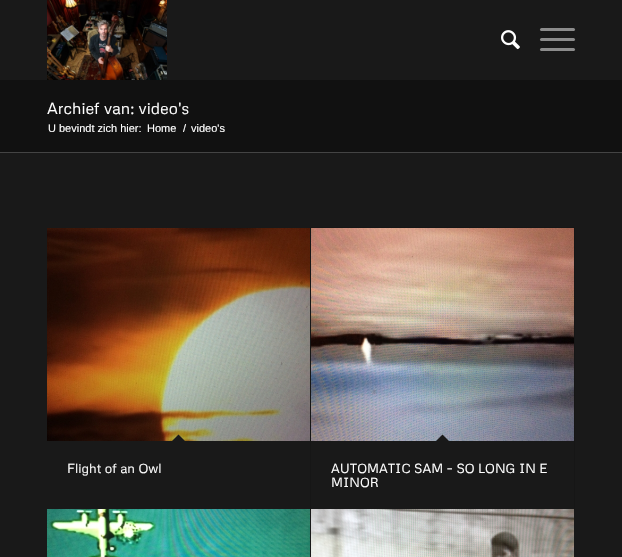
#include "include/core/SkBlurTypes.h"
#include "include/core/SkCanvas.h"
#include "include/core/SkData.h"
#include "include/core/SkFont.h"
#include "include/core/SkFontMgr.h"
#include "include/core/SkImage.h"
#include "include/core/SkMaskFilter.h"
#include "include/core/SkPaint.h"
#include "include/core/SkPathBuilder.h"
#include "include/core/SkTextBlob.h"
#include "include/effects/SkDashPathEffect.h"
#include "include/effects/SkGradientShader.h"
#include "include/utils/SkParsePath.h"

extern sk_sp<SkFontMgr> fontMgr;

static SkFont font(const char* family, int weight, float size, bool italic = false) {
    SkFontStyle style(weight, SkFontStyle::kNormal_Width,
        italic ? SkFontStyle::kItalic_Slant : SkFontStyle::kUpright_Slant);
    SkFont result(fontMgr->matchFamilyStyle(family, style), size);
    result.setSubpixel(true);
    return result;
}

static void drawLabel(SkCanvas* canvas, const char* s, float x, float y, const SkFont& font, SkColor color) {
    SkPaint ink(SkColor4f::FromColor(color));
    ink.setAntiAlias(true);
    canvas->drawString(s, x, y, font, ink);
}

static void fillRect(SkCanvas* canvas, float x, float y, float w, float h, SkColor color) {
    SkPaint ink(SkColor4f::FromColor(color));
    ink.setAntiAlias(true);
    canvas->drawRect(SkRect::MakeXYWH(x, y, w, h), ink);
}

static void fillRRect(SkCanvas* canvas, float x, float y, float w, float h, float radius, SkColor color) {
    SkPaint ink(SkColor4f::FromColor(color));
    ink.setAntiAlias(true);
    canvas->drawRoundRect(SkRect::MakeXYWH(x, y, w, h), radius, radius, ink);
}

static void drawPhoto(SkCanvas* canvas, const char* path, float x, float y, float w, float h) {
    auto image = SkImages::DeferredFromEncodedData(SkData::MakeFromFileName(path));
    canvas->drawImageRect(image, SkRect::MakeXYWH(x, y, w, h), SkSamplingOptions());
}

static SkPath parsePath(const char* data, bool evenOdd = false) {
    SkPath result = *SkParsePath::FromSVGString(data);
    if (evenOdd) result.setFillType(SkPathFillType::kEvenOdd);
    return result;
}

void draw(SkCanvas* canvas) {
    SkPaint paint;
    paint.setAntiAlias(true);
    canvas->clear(0xFF191919);
    drawPhoto(canvas, "assets/img1.png", 47, 0, 120, 80);
    drawPhoto(canvas, "assets/img2.png", 501, 30, 19, 20);
    fillRRect(canvas, 540, 38, 35, 3, 1.5f, 0xFF8C8C8C);
    fillRRect(canvas, 540, 28, 35, 3, 1.5f, 0xFF8C8C8C);
    fillRRect(canvas, 540, 48, 35, 3, 1.5f, 0xFF8C8C8C);
    fillRect(canvas, 0, 80, 622, 72, 0xFF111111);
    SkFont font1 = font("Metrophobic", 400, 16);
    drawLabel(canvas, "Archief van: video's", 47, 114, font1, 0xFFFFFFFF);
    SkFont font2 = font("Liberation Sans", 400, 11);
    drawLabel(canvas, "U bevindt zich hier:", 48, 132, font2, 0xFFFFFFFF);
    drawLabel(canvas, "Home", 147, 132, font2, 0xFFFFFFFF);
    drawLabel(canvas, "/", 183, 132, font2, 0xFFFFFFFF);
    drawLabel(canvas, "video's", 191, 132, font2, 0xFFFFFFFF);
    fillRect(canvas, 0, 152, 622, 1, 0xFF444444);
    drawPhoto(canvas, "assets/img3.png", 47, 228, 263, 213);
    paint.setColor(0xFF191919);
    canvas->drawPath(parsePath("M178.5 434.5L185.5 441.5L178.5 448.5L171.5 441.5Z"), paint);
    SkFont font3 = font("Metrophobic", 400, 13);
    drawLabel(canvas, "Flight of an Owl", 67, 473, font3, 0xFFFFFFFF);
    paint.setStroke(true);
    paint.setStrokeWidth(1);
    paint.setColor(0xFF161616);
    canvas->drawRect(SkRect::MakeXYWH(310.5f, 227.5f, 264, 282), paint);
    drawPhoto(canvas, "assets/img4.png", 311, 228, 263, 213);
    paint.setStroke(false);
    paint.setColor(0xFF191919);
    canvas->drawPath(parsePath("M442.5 434.5L449.5 441.5L442.5 448.5L435.5 441.5Z"), paint);
    drawLabel(canvas, "AUTOMATIC SAM – SO LONG IN E", 331, 473, font3, 0xFFFFFFFF);
    drawLabel(canvas, "MINOR", 331, 487, font3, 0xFFFFFFFF);
    drawPhoto(canvas, "assets/img5.png", 47, 509, 263, 48);
    drawPhoto(canvas, "assets/img6.png", 311, 509, 263, 48);
}
